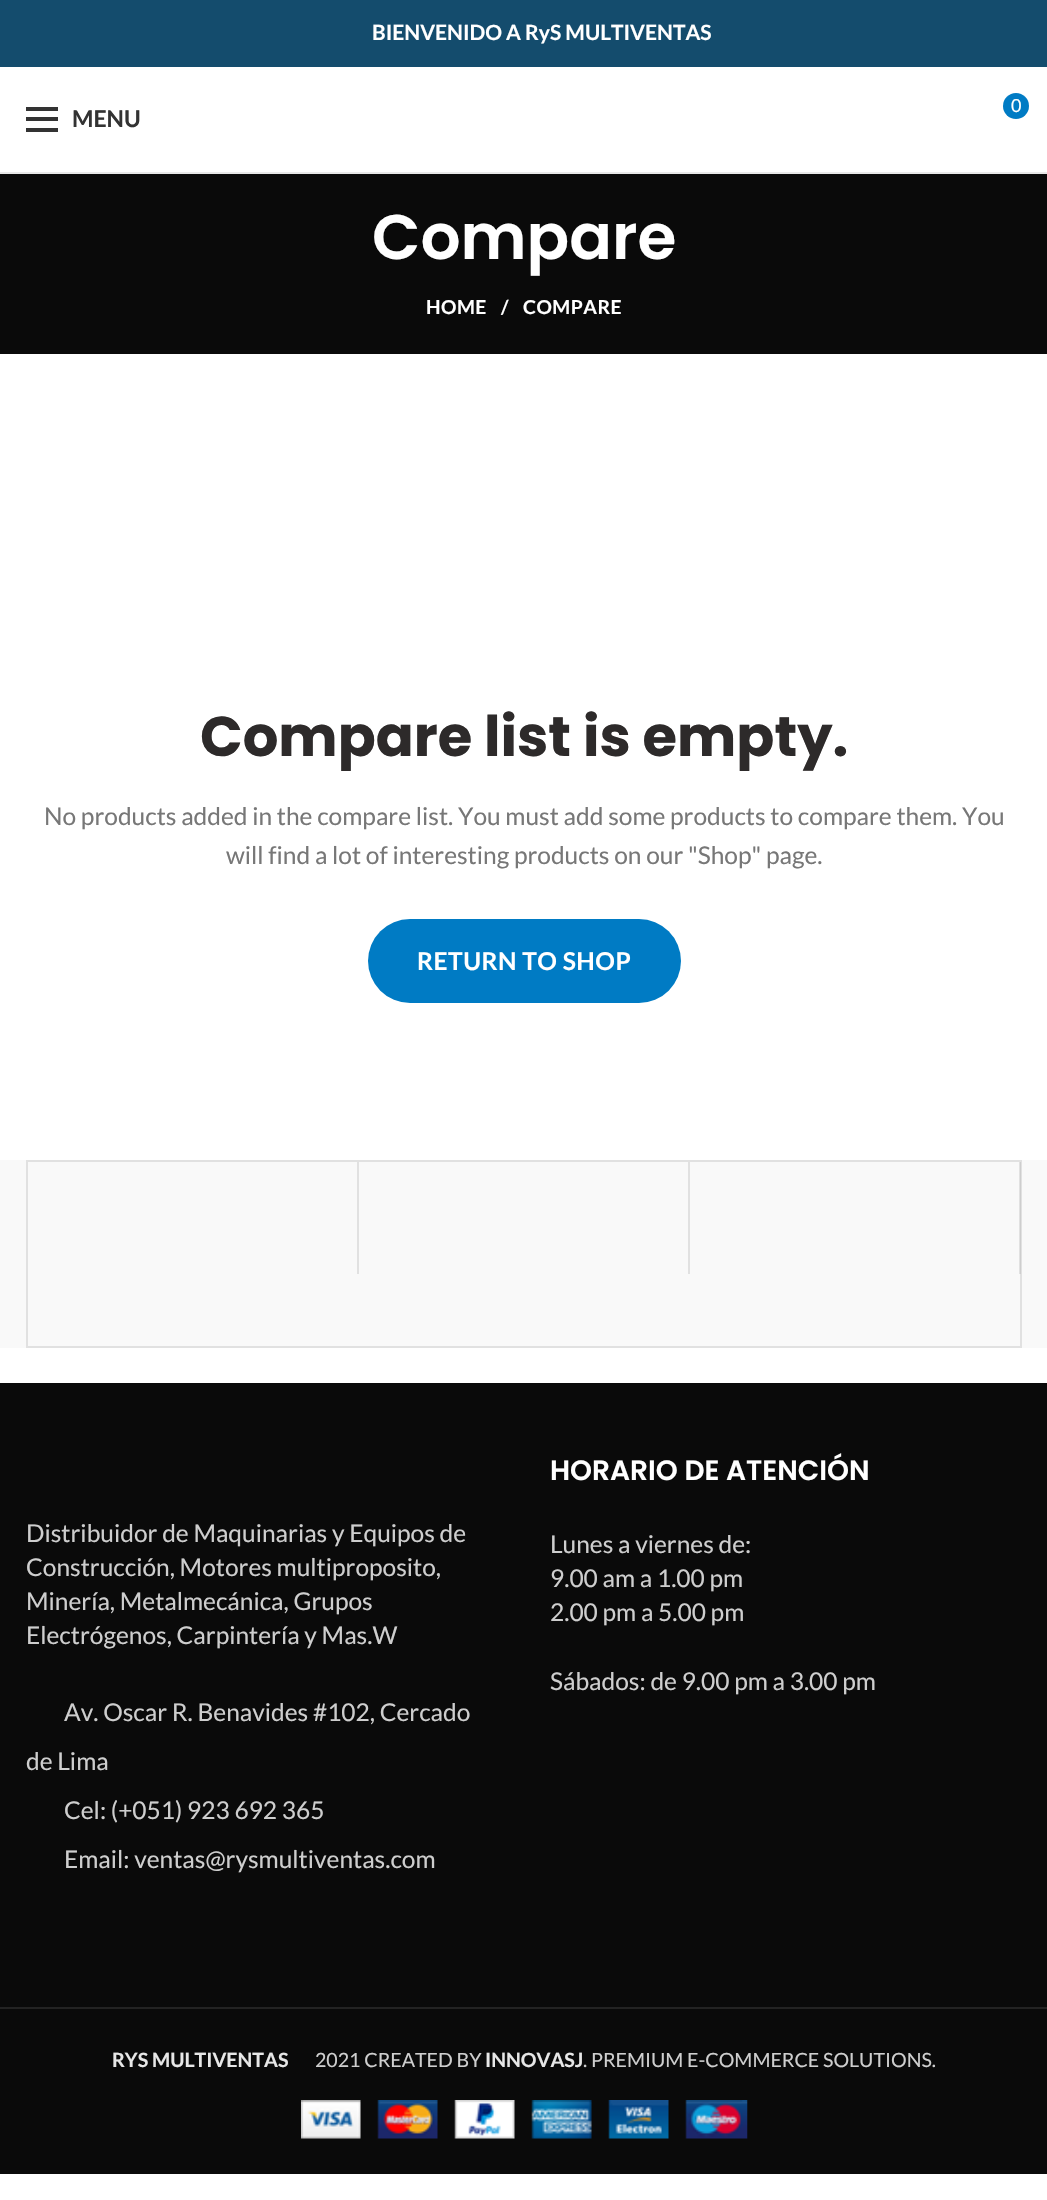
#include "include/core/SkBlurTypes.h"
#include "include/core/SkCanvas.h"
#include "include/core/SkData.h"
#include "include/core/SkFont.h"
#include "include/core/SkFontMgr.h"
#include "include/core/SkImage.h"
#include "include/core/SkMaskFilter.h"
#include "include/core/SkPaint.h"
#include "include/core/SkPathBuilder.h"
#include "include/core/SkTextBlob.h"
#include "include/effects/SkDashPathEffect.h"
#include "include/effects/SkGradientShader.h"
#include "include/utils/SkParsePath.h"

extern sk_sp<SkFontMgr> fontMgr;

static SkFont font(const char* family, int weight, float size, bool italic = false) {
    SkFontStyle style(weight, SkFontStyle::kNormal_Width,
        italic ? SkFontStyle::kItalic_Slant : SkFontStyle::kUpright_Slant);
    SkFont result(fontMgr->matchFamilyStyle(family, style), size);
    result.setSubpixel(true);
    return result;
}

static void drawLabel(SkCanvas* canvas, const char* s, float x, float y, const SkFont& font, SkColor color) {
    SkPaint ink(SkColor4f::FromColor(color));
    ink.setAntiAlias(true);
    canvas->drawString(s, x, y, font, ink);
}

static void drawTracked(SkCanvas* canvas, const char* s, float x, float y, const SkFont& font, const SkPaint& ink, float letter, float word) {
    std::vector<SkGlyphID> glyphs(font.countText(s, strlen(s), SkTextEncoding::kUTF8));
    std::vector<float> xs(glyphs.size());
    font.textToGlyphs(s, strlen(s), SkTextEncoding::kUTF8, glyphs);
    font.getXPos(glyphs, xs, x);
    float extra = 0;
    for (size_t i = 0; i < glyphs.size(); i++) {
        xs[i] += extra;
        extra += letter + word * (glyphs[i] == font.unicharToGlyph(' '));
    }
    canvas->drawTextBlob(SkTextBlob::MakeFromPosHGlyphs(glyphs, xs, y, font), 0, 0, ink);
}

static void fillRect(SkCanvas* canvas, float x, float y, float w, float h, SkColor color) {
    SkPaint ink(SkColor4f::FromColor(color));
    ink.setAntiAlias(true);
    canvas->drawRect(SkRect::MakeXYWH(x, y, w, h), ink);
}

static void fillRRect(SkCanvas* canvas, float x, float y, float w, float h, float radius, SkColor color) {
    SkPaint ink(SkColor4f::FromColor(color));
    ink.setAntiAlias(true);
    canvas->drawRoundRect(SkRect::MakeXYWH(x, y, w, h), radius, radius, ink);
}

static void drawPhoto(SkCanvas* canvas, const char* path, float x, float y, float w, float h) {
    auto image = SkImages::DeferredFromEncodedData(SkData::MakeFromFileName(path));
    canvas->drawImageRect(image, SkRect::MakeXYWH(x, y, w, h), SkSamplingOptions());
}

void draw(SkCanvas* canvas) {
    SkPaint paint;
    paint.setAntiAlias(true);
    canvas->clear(0xFFFFFFFF);
    fillRect(canvas, 0, 0, 1047, 67, 0xFF144C6D);
    SkFont font1 = font("Lato", 700, 21);
    drawLabel(canvas, "BIENVENIDO A RyS MULTIVENTAS", 372, 40, font1, 0xFFFFFFFF);
    fillRect(canvas, 0, 172, 1047, 2, 0xFFE8E8E8);
    paint.setColor(0xFF007BC4);
    canvas->drawCircle(1016, 106, 13, paint);
    SkFont font2 = font("Lato", 400, 18);
    drawLabel(canvas, "0", 1011, 112, font2, 0xFFFFFFFF);
    fillRect(canvas, 26, 117, 32, 4, 0xFF333333);
    fillRect(canvas, 26, 107, 32, 4, 0xFF333333);
    fillRect(canvas, 26, 128, 32, 4, 0xFF333333);
    SkFont font3 = font("Lato", 700, 23);
    drawLabel(canvas, "MENU", 72, 127, font3, 0xFF333333);
    fillRect(canvas, 0, 174, 1047, 180, 0xFF0A0A0A);
    SkFont font4 = font("Poppins", 600, 63);
    drawLabel(canvas, "Compare", 372, 259, font4, 0xFFFFFFFF);
    SkFont font5 = font("Lato", 700, 19.25f);
    paint.setColor(0xFFFFFFFF);
    drawTracked(canvas, "HOME", 426, 314, font5, paint, 0.5f, 0);
    drawTracked(canvas, "/", 501, 314, font5, paint, 0.5f, 0);
    drawTracked(canvas, "COMPARE", 523, 314, font5, paint, 0.5f, 0);
    SkFont font6 = font("Poppins", 700, 56);
    drawLabel(canvas, "Compare list is empty.", 200, 756, font6, 0xFF2D2A2A);
    SkFont font7 = font("Lato", 400, 24.5f);
    drawLabel(canvas, "No products added in the compare list. You must add some products to compare them. You", 44, 825, font7, 0xFF777777);
    drawLabel(canvas, "will find a lot of interesting products on our \"Shop\" page.", 226, 864, font7, 0xFF777777);
    fillRRect(canvas, 368, 919, 313, 84, 42, 0xFF007BC4);
    SkFont font8 = font("Lato", 700, 24.5f);
    drawTracked(canvas, "RETURN TO SHOP", 417, 970, font8, paint, 0.5f, 0);
    fillRect(canvas, 0, 1160, 1047, 188, 0xFFF9F9F9);
    paint.setStroke(true);
    paint.setStrokeWidth(2);
    paint.setColor(0xFFE1E1E1);
    canvas->drawRect(SkRect::MakeXYWH(27, 1161, 994, 186), paint);
    fillRect(canvas, 357, 1162, 2, 112, 0xFFE1E1E1);
    fillRect(canvas, 688, 1162, 2, 112, 0xFFE1E1E1);
    fillRect(canvas, 1019, 1162, 2, 112, 0x33818181);
    fillRect(canvas, 0, 1383, 1047, 791, 0xFF0A0A0A);
    drawLabel(canvas, "Distribuidor de Maquinarias y Equipos de", 26, 1542, font7, 0xFFCECECE);
    drawLabel(canvas, "Construcción, Motores multiproposito,", 26, 1576, font7, 0xFFCECECE);
    drawLabel(canvas, "Minería, Metalmecánica, Grupos", 26, 1610, font7, 0xFFCECECE);
    drawLabel(canvas, "Electrógenos, Carpintería y Mas.W", 26, 1644, font7, 0xFFCECECE);
    drawLabel(canvas, "Av. Oscar R. Benavides #102, Cercado", 64, 1721, font7, 0xFFCECECE);
    drawLabel(canvas, "de Lima", 26, 1770, font7, 0xFFCECECE);
    drawLabel(canvas, "Cel: (+051) 923 692 365", 64, 1819, font7, 0xFFCECECE);
    drawLabel(canvas, "Email: ventas@rysmultiventas.com", 64, 1868, font7, 0xFFCECECE);
    SkFont font9 = font("Poppins", 600, 28);
    drawLabel(canvas, "HORARIO DE ATENCIÓN", 550, 1480, font9, 0xFFFFFFFF);
    drawLabel(canvas, "Lunes a viernes de:", 550, 1553, font7, 0xFFCECECE);
    drawLabel(canvas, "9.00 am a 1.00 pm", 550, 1587, font7, 0xFFCECECE);
    drawLabel(canvas, "2.00 pm a 5.00 pm", 550, 1621, font7, 0xFFCECECE);
    drawLabel(canvas, "Sábados: de 9.00 pm a 3.00 pm", 550, 1690, font7, 0xFFCECECE);
    fillRect(canvas, 0, 2007, 1047, 2, 0xFF232323);
    SkFont font10 = font("Lato", 700, 19.6f);
    drawLabel(canvas, "RYS MULTIVENTAS", 112, 2067, font10, 0xFFE7E7E7);
    SkFont font11 = font("Lato", 400, 19.6f);
    drawLabel(canvas, "2021 CREATED BY", 315, 2067, font11, 0xFFCECECE);
    drawLabel(canvas, "INNOVASJ", 485, 2067, font10, 0xFFE7E7E7);
    drawLabel(canvas, ". PREMIUM E-COMMERCE SOLUTIONS.", 583, 2067, font11, 0xFFCECECE);
    drawPhoto(canvas, "assets/img1.png", 301, 2100, 447, 39);
}
